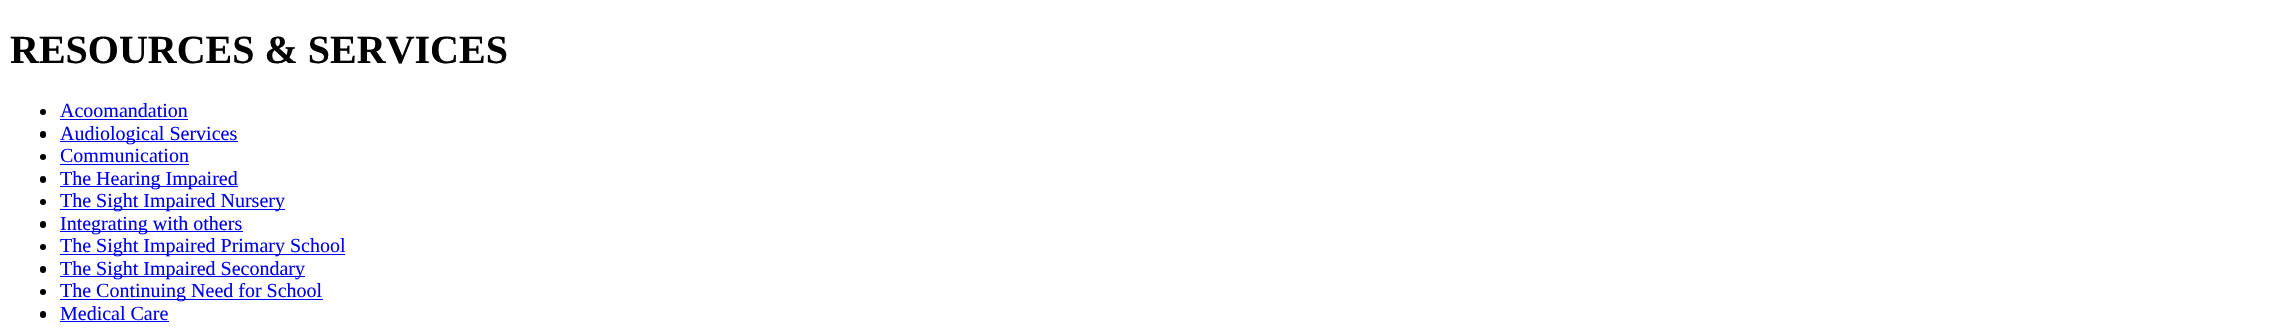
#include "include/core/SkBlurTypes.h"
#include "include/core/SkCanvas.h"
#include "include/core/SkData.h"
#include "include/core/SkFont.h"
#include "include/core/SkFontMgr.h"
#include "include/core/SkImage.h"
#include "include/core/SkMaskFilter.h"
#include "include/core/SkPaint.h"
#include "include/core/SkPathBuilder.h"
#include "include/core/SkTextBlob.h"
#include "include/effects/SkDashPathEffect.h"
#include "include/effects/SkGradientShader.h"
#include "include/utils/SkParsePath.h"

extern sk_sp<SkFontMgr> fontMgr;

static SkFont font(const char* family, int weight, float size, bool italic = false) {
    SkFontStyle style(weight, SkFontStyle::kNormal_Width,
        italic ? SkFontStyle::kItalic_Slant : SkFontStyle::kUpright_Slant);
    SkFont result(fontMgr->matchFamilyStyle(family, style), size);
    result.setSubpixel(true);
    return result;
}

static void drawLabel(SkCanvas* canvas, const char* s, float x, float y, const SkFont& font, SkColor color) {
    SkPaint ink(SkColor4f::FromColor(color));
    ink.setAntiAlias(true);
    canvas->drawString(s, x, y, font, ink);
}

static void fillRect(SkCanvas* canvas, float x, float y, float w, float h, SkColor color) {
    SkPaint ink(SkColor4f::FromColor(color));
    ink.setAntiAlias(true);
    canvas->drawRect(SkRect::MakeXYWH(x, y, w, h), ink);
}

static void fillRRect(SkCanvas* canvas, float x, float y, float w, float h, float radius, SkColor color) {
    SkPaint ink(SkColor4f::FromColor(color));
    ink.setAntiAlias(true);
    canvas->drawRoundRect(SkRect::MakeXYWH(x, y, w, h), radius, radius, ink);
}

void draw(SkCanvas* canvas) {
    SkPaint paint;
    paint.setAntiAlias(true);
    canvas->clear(0xFFFFFFFF);
    SkFont font1 = font("Liberation Serif", 700, 40);
    drawLabel(canvas, "RESOURCES & SERVICES", 10, 63, font1, 0xFF000000);
    paint.setColor(0xFF000000);
    canvas->drawCircle(43, 112, 3, paint);
    SkFont font2 = font("Liberation Serif", 400, 20);
    drawLabel(canvas, "Acoomandation", 60, 117, font2, 0xFF0000EE);
    fillRect(canvas, 60, 119, 128, 1, 0xFF0000EE);
    fillRRect(canvas, 40, 131, 6, 7, 3, 0xFF000000);
    fillRect(canvas, 60, 141, 178, 1, 0xFF0000EE);
    drawLabel(canvas, "Audiological Services", 60, 140, font2, 0xFF0000EE);
    canvas->drawCircle(43, 157, 3, paint);
    drawLabel(canvas, "Communication", 60, 162, font2, 0xFF0000EE);
    fillRect(canvas, 60, 164, 129, 1, 0xFF0000EE);
    fillRRect(canvas, 40, 176, 6, 7, 3, 0xFF000000);
    fillRect(canvas, 60, 186, 178, 1, 0xFF0000EE);
    drawLabel(canvas, "The Hearing Impaired", 60, 185, font2, 0xFF0000EE);
    canvas->drawCircle(43, 202, 3, paint);
    fillRect(canvas, 60, 209, 225, 1, 0xFF0000EE);
    drawLabel(canvas, "The Sight Impaired Nursery", 60, 207, font2, 0xFF0000EE);
    fillRRect(canvas, 40, 221, 6, 7, 3, 0xFF000000);
    fillRect(canvas, 60, 231, 183, 1, 0xFF0000EE);
    drawLabel(canvas, "Integrating with others", 60, 230, font2, 0xFF0000EE);
    canvas->drawCircle(43, 247, 3, paint);
    fillRect(canvas, 60, 254, 285, 1, 0xFF0000EE);
    drawLabel(canvas, "The Sight Impaired Primary School", 60, 252, font2, 0xFF0000EE);
    fillRRect(canvas, 40, 266, 6, 7, 3, 0xFF000000);
    fillRect(canvas, 60, 276, 245, 1, 0xFF0000EE);
    drawLabel(canvas, "The Sight Impaired Secondary", 60, 275, font2, 0xFF0000EE);
    canvas->drawCircle(43, 292, 3, paint);
    fillRect(canvas, 60, 299, 263, 1, 0xFF0000EE);
    drawLabel(canvas, "The Continuing Need for School", 60, 297, font2, 0xFF0000EE);
    fillRRect(canvas, 40, 311, 6, 7, 3, 0xFF000000);
    drawLabel(canvas, "Medical Care", 60, 320, font2, 0xFF0000EE);
    fillRect(canvas, 60, 321, 109, 1, 0xFF0000EE);
}
